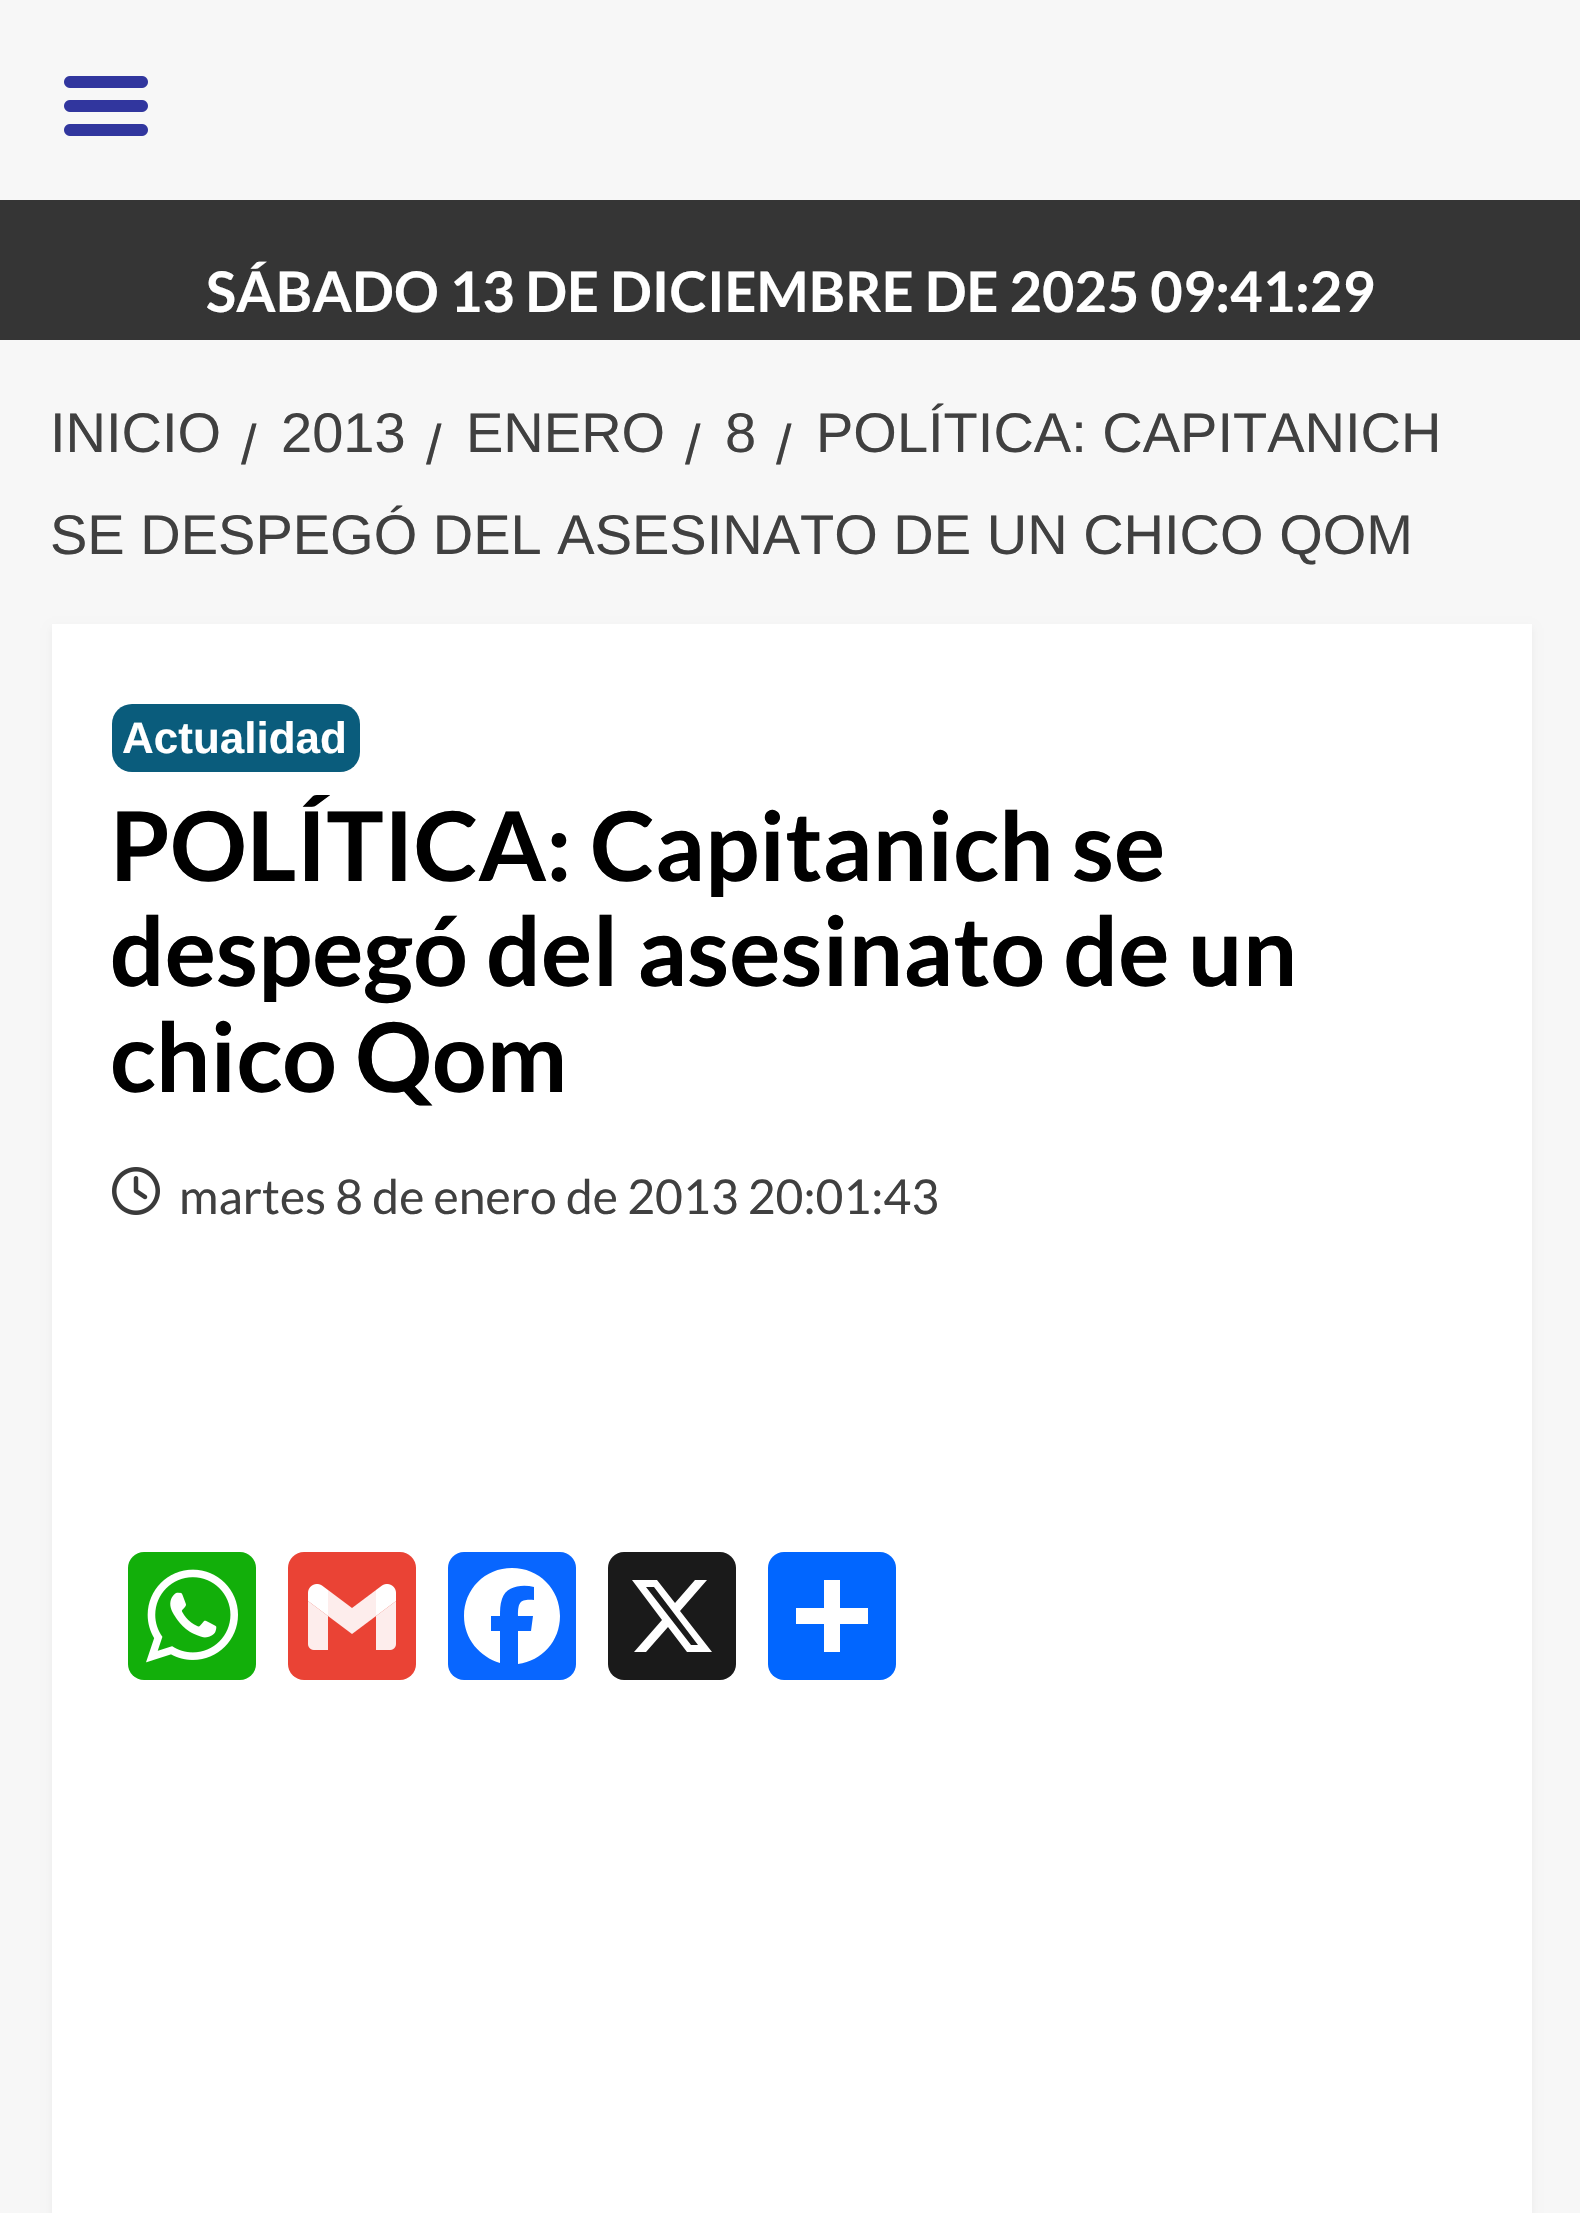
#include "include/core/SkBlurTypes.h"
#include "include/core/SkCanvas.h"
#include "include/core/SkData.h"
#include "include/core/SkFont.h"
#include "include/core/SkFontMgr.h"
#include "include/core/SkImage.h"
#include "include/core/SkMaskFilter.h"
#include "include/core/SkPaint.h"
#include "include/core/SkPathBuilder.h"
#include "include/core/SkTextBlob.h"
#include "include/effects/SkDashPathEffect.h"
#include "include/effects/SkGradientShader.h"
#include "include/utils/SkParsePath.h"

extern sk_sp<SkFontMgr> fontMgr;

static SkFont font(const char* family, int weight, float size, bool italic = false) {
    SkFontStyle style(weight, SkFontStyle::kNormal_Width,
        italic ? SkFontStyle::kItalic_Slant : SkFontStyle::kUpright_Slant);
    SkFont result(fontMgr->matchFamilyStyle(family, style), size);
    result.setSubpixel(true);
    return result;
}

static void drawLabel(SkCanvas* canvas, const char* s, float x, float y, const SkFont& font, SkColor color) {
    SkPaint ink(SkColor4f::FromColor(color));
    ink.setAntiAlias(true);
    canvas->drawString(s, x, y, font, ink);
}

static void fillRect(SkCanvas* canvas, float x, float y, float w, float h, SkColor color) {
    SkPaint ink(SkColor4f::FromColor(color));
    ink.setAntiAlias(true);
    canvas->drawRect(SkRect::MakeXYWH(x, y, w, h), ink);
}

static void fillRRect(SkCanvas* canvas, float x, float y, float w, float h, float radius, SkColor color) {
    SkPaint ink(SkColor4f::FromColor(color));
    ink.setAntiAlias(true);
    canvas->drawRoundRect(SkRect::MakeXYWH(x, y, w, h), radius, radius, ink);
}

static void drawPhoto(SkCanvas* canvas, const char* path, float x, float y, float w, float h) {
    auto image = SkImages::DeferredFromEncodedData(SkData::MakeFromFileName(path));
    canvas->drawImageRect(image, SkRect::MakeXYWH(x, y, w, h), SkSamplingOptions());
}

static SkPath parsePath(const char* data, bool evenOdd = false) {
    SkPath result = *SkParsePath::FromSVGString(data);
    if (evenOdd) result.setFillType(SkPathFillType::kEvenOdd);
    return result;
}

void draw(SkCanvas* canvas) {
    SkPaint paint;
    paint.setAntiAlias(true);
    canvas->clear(0xFFF7F7F7);
    drawPhoto(canvas, "assets/img1.png", 64, 76, 84, 60);
    fillRect(canvas, 0, 200, 1580, 140, 0xFF353535);
    SkFont font1 = font("Lato", 700, 56);
    drawLabel(canvas, "SÁBADO 13 DE DICIEMBRE DE 2025 09:41:29", 206, 312, font1, 0xFFFFFFFF);
    SkFont font2 = font("Liberation Sans", 400, 56);
    drawLabel(canvas, "/", 776, 464, font2, 0xFF404040);
    drawLabel(canvas, "POLÍTICA: CAPITANICH", 816, 452, font2, 0xFF404040);
    drawLabel(canvas, "SE DESPEGÓ DEL ASESINATO DE UN CHICO QOM", 50, 554, font2, 0xFF404040);
    drawLabel(canvas, "INICIO", 50, 452, font2, 0xFF404040);
    drawLabel(canvas, "/", 241, 464, font2, 0xFF404040);
    drawLabel(canvas, "2013", 281, 452, font2, 0xFF404040);
    drawLabel(canvas, "/", 426, 464, font2, 0xFF404040);
    drawLabel(canvas, "ENERO", 466, 452, font2, 0xFF404040);
    drawLabel(canvas, "/", 685, 464, font2, 0xFF404040);
    drawLabel(canvas, "8", 725, 452, font2, 0xFF404040);
    paint.setColor(0x0D000000);
    paint.setMaskFilter(SkMaskFilter::MakeBlur(kNormal_SkBlurStyle, 4));
    canvas->drawRect(SkRect::MakeXYWH(52, 628, 1480, 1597), paint);
    paint.setMaskFilter(nullptr);
    fillRect(canvas, 52, 624, 1480, 1589, 0xFFFFFFFF);
    fillRRect(canvas, 112, 704, 248, 68, 20, 0xFF0A5C7C);
    SkFont font3 = font("Liberation Sans", 700, 44);
    drawLabel(canvas, "Actualidad", 122, 753, font3, 0xFFFFFFFF);
    SkFont font4 = font("Lato", 700, 96);
    drawLabel(canvas, "POLÍTICA: Capitanich se", 110, 881, font4, 0xFF000000);
    drawLabel(canvas, "despegó del asesinato de un", 110, 986, font4, 0xFF000000);
    drawLabel(canvas, "chico Qom", 110, 1092, font4, 0xFF000000);
    drawPhoto(canvas, "assets/img2.png", 112, 1167, 48, 48);
    SkFont font5 = font("Lato", 400, 48);
    drawLabel(canvas, "martes 8 de enero de 2013 20:01:43", 179, 1214, font5, 0xFF404040);
    fillRRect(canvas, 128, 1552, 128, 128, 16, 0xFF12AF0A);
    drawPhoto(canvas, "assets/img3.png", 146, 1569, 92, 94);
    fillRRect(canvas, 288, 1552, 128, 128, 16, 0xFFEA4335);
    drawPhoto(canvas, "assets/img4.png", 308, 1584, 88, 66);
    fillRRect(canvas, 448, 1552, 128, 128, 16, 0xFF0866FF);
    paint.setColor(0xFFFFFFFF);
    canvas->drawPath(parsePath("M560 1616C560 1589 539 1568 512 1568C485 1568 464 1589 464 1616C464 1639 480 1657 500 1663V1631H491V1616H500C500 1610 500 1605 502 1599C506 1586 522 1584 534 1587V1600C520 1599 518 1602 518 1616H533L531 1631H518V1664C542 1661 560 1641 560 1616"), paint);
    fillRRect(canvas, 608, 1552, 128, 128, 16, 0xFF1A1A1A);
    canvas->drawPath(parsePath("M695 1580H707L680 1611L712 1652H687L668 1627L646 1652H634L662 1620L632 1580H657L675 1603ZM691 1645H698L654 1587H646Z"), paint);
    fillRRect(canvas, 768, 1552, 128, 128, 16, 0xFF0166FF);
    fillRect(canvas, 824, 1580, 16, 72, 0xFFFFFFFF);
    fillRect(canvas, 796, 1608, 72, 16, 0xFFFFFFFF);
}
